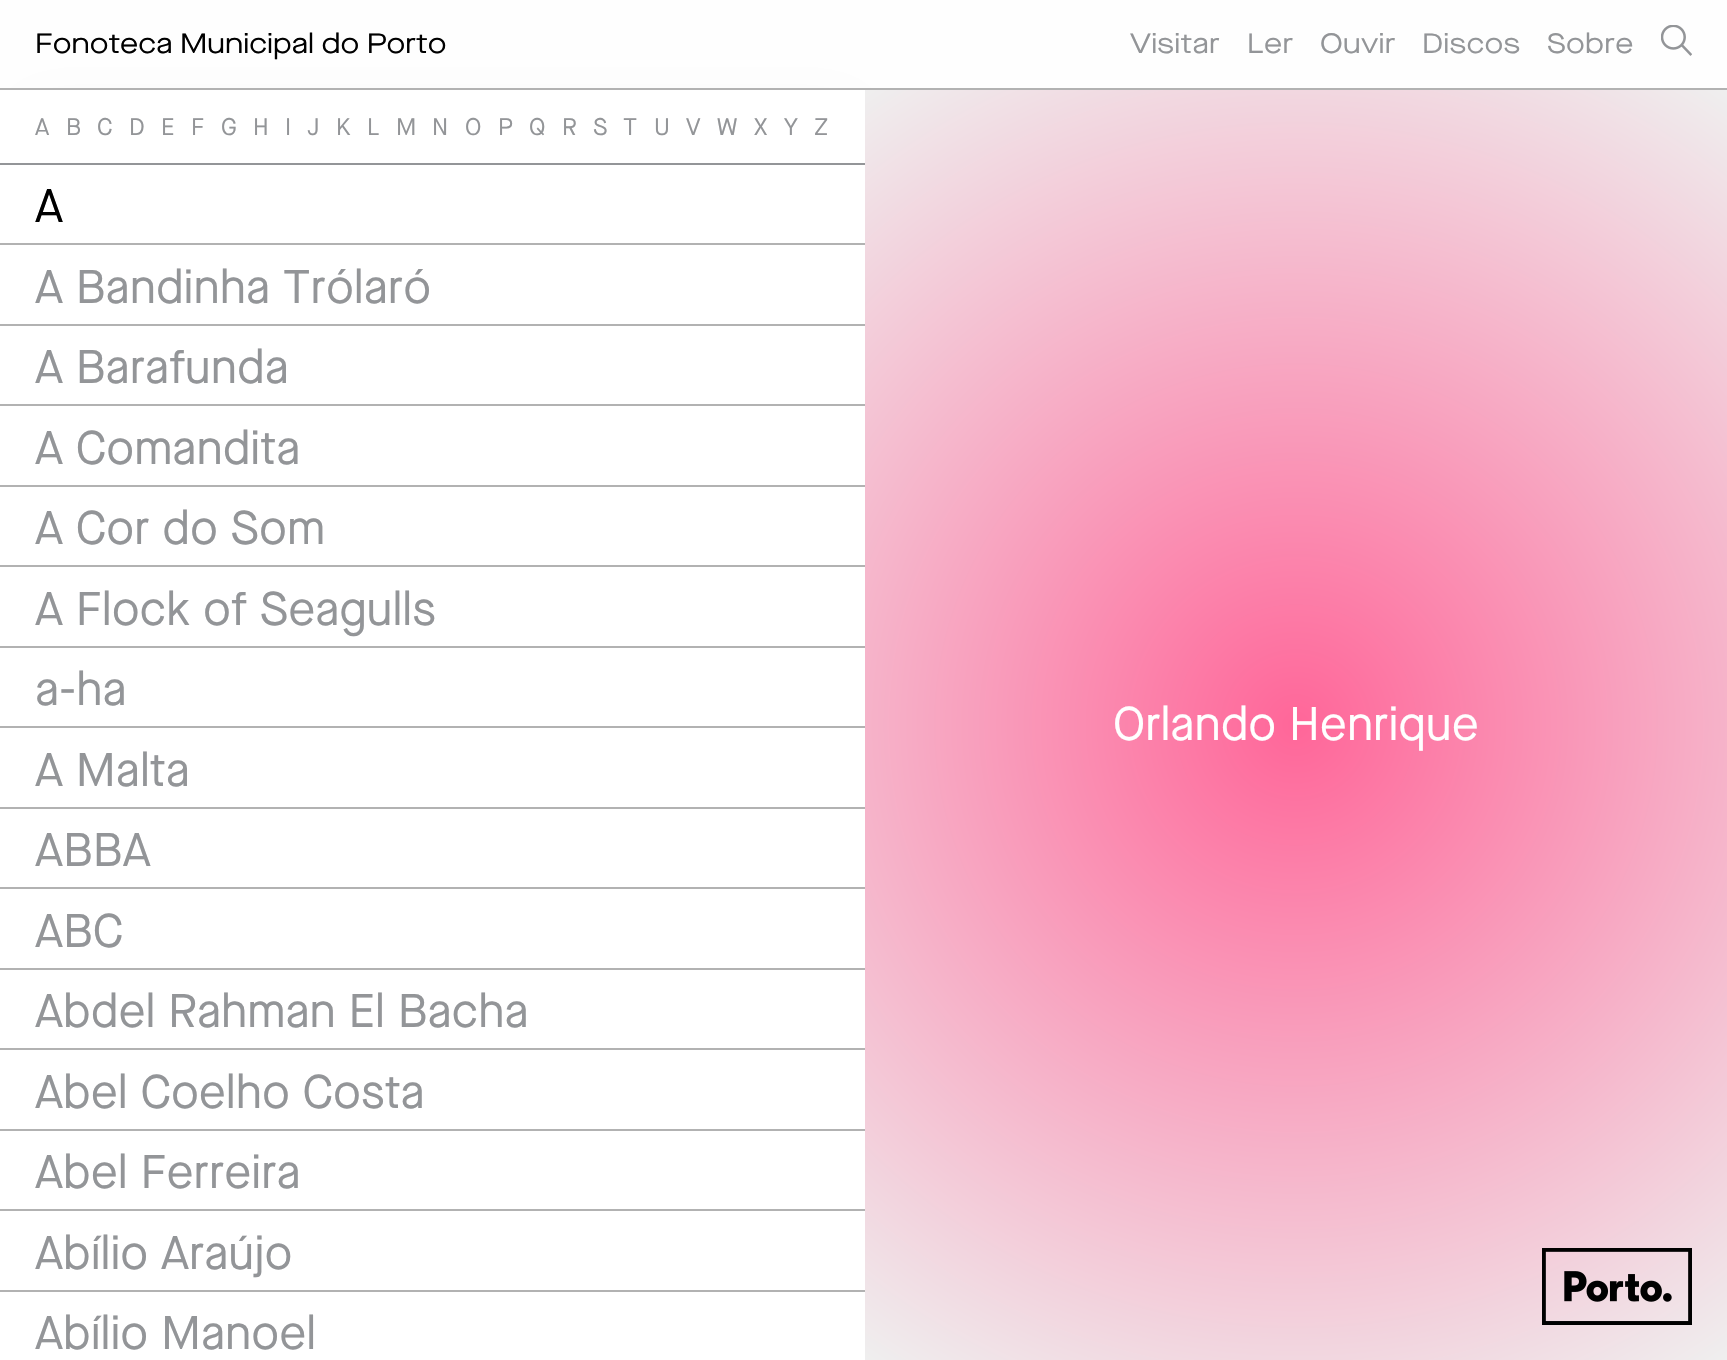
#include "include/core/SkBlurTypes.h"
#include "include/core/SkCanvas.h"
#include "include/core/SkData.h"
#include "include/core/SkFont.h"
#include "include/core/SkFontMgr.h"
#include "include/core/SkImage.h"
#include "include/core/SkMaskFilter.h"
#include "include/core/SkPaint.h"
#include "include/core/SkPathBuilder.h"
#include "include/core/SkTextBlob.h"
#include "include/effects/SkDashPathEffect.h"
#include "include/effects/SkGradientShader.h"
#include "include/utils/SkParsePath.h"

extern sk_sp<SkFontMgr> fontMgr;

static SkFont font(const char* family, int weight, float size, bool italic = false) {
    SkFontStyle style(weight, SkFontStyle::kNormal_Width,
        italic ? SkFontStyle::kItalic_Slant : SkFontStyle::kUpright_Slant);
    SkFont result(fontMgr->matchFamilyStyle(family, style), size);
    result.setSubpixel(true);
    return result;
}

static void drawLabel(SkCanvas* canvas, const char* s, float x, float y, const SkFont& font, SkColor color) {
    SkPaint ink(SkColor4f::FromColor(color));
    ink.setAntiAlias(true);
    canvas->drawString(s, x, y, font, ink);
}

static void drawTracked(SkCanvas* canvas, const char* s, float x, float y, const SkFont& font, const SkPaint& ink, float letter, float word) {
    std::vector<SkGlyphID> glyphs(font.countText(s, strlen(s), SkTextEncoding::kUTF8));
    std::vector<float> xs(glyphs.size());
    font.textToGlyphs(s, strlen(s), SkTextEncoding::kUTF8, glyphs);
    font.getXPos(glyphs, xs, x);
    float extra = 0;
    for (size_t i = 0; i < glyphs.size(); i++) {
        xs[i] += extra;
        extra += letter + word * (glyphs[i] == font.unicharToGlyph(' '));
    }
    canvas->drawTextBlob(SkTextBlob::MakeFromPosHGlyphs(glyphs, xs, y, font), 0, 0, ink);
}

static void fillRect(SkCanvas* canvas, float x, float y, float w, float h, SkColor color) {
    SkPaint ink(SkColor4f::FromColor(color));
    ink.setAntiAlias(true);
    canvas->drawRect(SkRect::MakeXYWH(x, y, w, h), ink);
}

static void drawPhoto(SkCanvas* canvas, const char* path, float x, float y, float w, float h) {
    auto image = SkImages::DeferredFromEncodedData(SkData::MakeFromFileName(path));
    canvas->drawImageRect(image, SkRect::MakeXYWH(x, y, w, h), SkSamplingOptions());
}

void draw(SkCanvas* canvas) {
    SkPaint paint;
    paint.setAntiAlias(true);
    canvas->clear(0xFFF2F2F2);
    paint.setColor(0x4D000000);
    paint.setMaskFilter(SkMaskFilter::MakeBlur(kNormal_SkBlurStyle, 26));
    canvas->drawRect(SkRect::MakeXYWH(26, 105, 830, 1239), paint);
    paint.setMaskFilter(nullptr);
    fillRect(canvas, 0, 0, 1727, 88, 0xE6FFFFFF);
    fillRect(canvas, 0, 88, 1727, 2, 0xFFB2B2B2);
    SkFont font1 = font("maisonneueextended", 400, 28);
    drawLabel(canvas, "Fonoteca Municipal do Porto", 35, 53, font1, 0xFF000000);
    paint.setColor(0xFF939598);
    drawTracked(canvas, "Visitar", 1130, 53, font1, paint, 0.25f, 0);
    drawTracked(canvas, "Ler", 1247, 53, font1, paint, 0.25f, 0);
    drawTracked(canvas, "Ouvir", 1320, 53, font1, paint, 0.25f, 0);
    drawTracked(canvas, "Discos", 1422, 53, font1, paint, 0.25f, 0);
    drawTracked(canvas, "Sobre", 1547, 53, font1, paint, 0.25f, 0);
    drawPhoto(canvas, "assets/img1.png", 1661, 25, 31, 31);
    fillRect(canvas, 0, 90, 865, 1270, 0xFFFFFFFF);
    fillRect(canvas, 0, 163, 865, 2, 0xFF939598);
    SkFont font2 = font("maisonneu", 400, 24);
    drawLabel(canvas, "A", 35, 135, font2, 0xFF939598);
    drawLabel(canvas, "B", 66, 135, font2, 0xFF939598);
    drawLabel(canvas, "C", 97, 135, font2, 0xFF939598);
    drawLabel(canvas, "D", 129, 135, font2, 0xFF939598);
    drawLabel(canvas, "E", 161, 135, font2, 0xFF939598);
    drawLabel(canvas, "F", 191, 135, font2, 0xFF939598);
    drawLabel(canvas, "G", 221, 135, font2, 0xFF939598);
    drawLabel(canvas, "H", 253, 135, font2, 0xFF939598);
    drawLabel(canvas, "I", 285, 135, font2, 0xFF939598);
    drawLabel(canvas, "J", 307, 135, font2, 0xFF939598);
    drawLabel(canvas, "K", 336, 135, font2, 0xFF939598);
    drawLabel(canvas, "L", 367, 135, font2, 0xFF939598);
    drawLabel(canvas, "M", 396, 135, font2, 0xFF939598);
    drawLabel(canvas, "N", 432, 135, font2, 0xFF939598);
    drawLabel(canvas, "O", 465, 135, font2, 0xFF939598);
    drawLabel(canvas, "P", 498, 135, font2, 0xFF939598);
    drawLabel(canvas, "Q", 529, 135, font2, 0xFF939598);
    drawLabel(canvas, "R", 562, 135, font2, 0xFF939598);
    drawLabel(canvas, "S", 593, 135, font2, 0xFF939598);
    drawLabel(canvas, "T", 623, 135, font2, 0xFF939598);
    drawLabel(canvas, "U", 654, 135, font2, 0xFF939598);
    drawLabel(canvas, "V", 686, 135, font2, 0xFF939598);
    drawLabel(canvas, "W", 717, 135, font2, 0xFF939598);
    drawLabel(canvas, "X", 754, 135, font2, 0xFF939598);
    drawLabel(canvas, "Y", 784, 135, font2, 0xFF939598);
    drawLabel(canvas, "Z", 814, 135, font2, 0xFF939598);
    fillRect(canvas, 0, 243, 865, 2, 0xFFB2B2B2);
    SkFont font3 = font("maisonneu", 400, 47.25f);
    drawLabel(canvas, "A", 35, 222, font3, 0xFF000000);
    fillRect(canvas, 0, 324, 865, 2, 0xFFB2B2B2);
    drawLabel(canvas, "A Bandinha Trólaró", 35, 303, font3, 0xFF939598);
    fillRect(canvas, 0, 404, 865, 2, 0xFFB2B2B2);
    drawLabel(canvas, "A Barafunda", 35, 383, font3, 0xFF939598);
    fillRect(canvas, 0, 485, 865, 2, 0xFFB2B2B2);
    drawLabel(canvas, "A Comandita", 35, 464, font3, 0xFF939598);
    fillRect(canvas, 0, 565, 865, 2, 0xFFB2B2B2);
    drawLabel(canvas, "A Cor do Som", 35, 544, font3, 0xFF939598);
    fillRect(canvas, 0, 646, 865, 2, 0xFFB2B2B2);
    drawLabel(canvas, "A Flock of Seagulls", 35, 625, font3, 0xFF939598);
    fillRect(canvas, 0, 726, 865, 2, 0xFFB2B2B2);
    drawLabel(canvas, "a-ha", 35, 705, font3, 0xFF939598);
    fillRect(canvas, 0, 807, 865, 2, 0xFFB2B2B2);
    drawLabel(canvas, "A Malta", 35, 786, font3, 0xFF939598);
    fillRect(canvas, 0, 887, 865, 2, 0xFFB2B2B2);
    drawLabel(canvas, "ABBA", 35, 866, font3, 0xFF939598);
    fillRect(canvas, 0, 968, 865, 2, 0xFFB2B2B2);
    drawLabel(canvas, "ABC", 35, 947, font3, 0xFF939598);
    fillRect(canvas, 0, 1048, 865, 2, 0xFFB2B2B2);
    drawLabel(canvas, "Abdel Rahman El Bacha", 35, 1027, font3, 0xFF939598);
    fillRect(canvas, 0, 1129, 865, 2, 0xFFB2B2B2);
    drawLabel(canvas, "Abel Coelho Costa", 35, 1108, font3, 0xFF939598);
    fillRect(canvas, 0, 1209, 865, 2, 0xFFB2B2B2);
    drawLabel(canvas, "Abel Ferreira", 35, 1188, font3, 0xFF939598);
    fillRect(canvas, 0, 1290, 865, 2, 0xFFB2B2B2);
    drawLabel(canvas, "Abílio Araújo", 35, 1269, font3, 0xFF939598);
    drawLabel(canvas, "Abílio Manoel", 35, 1349, font3, 0xFF939598);
    {
        const SkColor colors[] = {0xFFFF6699, 0xFFEFEFEF};
        const float stops[] = {0, 1};
        paint.setShader(SkGradientShader::MakeRadial({1296, 725}, 769, colors, stops, 2, SkTileMode::kClamp));
        paint.setAlpha(255);
    }
    canvas->drawRect(SkRect::MakeXYWH(865, 90, 862, 1270), paint);
    drawLabel(canvas, "Orlando Henrique", 1113, 740, font3, 0xFFFFFFFF);
    drawPhoto(canvas, "assets/img2.png", 1542, 1248, 150, 77);
}
